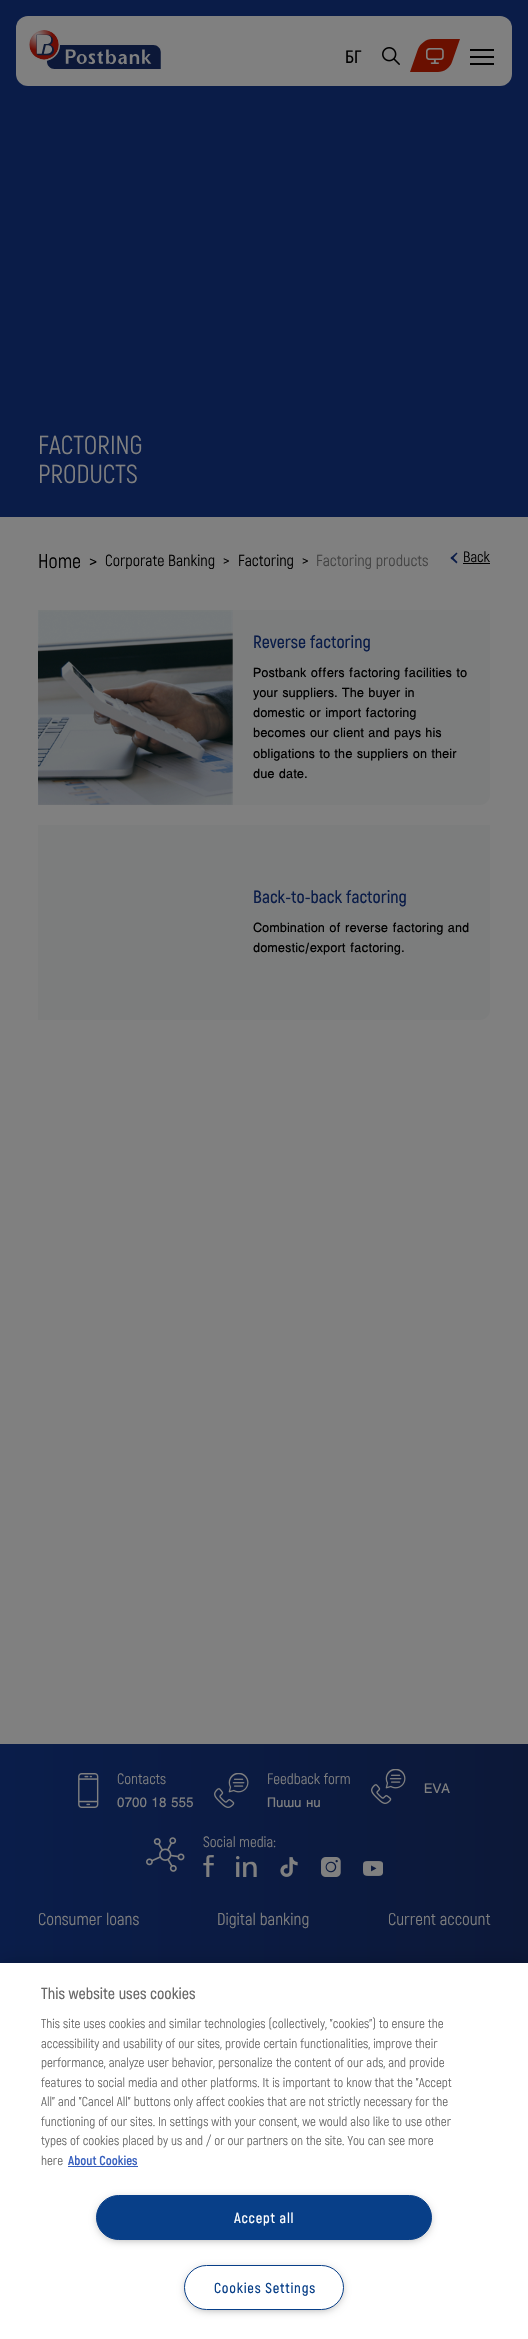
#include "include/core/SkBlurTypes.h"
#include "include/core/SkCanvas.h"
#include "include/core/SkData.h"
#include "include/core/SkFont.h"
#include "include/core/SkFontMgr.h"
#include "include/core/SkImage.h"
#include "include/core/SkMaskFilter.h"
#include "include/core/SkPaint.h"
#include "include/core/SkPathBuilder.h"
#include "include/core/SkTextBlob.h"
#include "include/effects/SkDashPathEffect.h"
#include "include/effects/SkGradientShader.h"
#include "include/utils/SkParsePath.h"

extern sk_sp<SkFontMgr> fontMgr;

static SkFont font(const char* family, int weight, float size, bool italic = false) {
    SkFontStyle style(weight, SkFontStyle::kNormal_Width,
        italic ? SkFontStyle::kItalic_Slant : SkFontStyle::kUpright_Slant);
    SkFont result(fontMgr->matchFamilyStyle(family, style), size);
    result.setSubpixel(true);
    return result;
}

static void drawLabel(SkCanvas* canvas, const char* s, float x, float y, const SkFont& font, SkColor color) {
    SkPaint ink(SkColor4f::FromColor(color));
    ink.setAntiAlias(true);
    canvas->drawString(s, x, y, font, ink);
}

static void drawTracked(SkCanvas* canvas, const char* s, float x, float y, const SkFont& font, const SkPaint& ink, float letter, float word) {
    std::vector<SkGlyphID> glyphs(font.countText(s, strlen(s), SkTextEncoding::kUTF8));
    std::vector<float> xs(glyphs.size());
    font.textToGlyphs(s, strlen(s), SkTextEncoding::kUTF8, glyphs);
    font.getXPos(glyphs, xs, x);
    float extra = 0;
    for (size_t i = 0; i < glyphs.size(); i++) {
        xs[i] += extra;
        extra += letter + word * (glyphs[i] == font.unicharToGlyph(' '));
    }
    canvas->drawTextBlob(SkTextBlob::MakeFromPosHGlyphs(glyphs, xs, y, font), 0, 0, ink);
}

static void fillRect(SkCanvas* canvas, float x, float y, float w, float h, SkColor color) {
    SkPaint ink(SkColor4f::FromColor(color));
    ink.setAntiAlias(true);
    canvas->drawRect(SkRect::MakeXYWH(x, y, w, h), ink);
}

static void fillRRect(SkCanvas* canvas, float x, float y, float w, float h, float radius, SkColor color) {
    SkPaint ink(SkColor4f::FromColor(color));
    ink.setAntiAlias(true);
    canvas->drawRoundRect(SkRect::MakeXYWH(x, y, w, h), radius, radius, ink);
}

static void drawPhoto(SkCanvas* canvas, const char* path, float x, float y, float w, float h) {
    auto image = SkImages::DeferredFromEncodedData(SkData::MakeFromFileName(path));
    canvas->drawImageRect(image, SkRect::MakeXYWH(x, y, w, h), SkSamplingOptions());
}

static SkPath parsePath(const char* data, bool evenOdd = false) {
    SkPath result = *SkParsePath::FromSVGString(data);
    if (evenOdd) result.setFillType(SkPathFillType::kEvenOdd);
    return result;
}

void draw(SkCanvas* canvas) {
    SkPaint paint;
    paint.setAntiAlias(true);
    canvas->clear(0xFF808080);
    fillRect(canvas, 0, 0, 528, 517, 0xFF0A1C48);
    fillRRect(canvas, 16, 16, 496, 70, 12, 0xFF808080);
    drawPhoto(canvas, "assets/img1.png", 29, 30, 132, 39);
    SkFont font1 = font("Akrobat", 600, 18);
    drawLabel(canvas, "БГ", 345, 63, font1, 0xFF000000);
    drawPhoto(canvas, "assets/img2.png", 382, 47, 18, 18);
    paint.setColor(0xFF6A1000);
    canvas->drawPath(parsePath("M432 39H460L452 62C450 68 444 72 438 72H410L418 49C420 44 426 39 432 39Z"), paint);
    drawPhoto(canvas, "assets/img3.png", 426, 48, 18, 16);
    fillRect(canvas, 470, 49, 24, 2, 0xFF000000);
    fillRect(canvas, 470, 56, 24, 2, 0xFF000000);
    fillRect(canvas, 470, 63, 24, 2, 0xFF000000);
    SkFont font2 = font("Akrobat", 400, 26);
    drawLabel(canvas, "FACTORING", 38, 454, font2, 0xFF808080);
    drawLabel(canvas, "PRODUCTS", 38, 483, font2, 0xFF808080);
    SkFont font3 = font("Akrobat", 400, 20);
    drawLabel(canvas, "Home", 38, 568, font3, 0xFF000000);
    drawLabel(canvas, ">", 89, 568, font3, 0xFF000000);
    SkFont font4 = font("Akrobat", 400, 16);
    drawLabel(canvas, "Corporate Banking", 105, 566, font4, 0xFF000000);
    drawLabel(canvas, ">", 223, 566, font4, 0xFF000000);
    drawLabel(canvas, "Factoring", 238, 566, font4, 0xFF000000);
    drawLabel(canvas, ">", 302, 566, font4, 0xFF000000);
    drawLabel(canvas, "Factoring products", 316, 566, font4, 0xFF424242);
    paint.setColor(0xFF0A1C48);
    canvas->drawPath(parsePath("M452 556.5L457.5 562L456.5 563.5L450.5 558Z"), paint);
    canvas->drawPath(parsePath("M456.5 552.5L457.5 553.5L452 559.5L450.5 558Z"), paint);
    SkFont font5 = font("Akrobat", 400, 15);
    drawLabel(canvas, "Back", 463, 562, font5, 0xFF000000);
    fillRect(canvas, 463, 563, 27, 1, 0xFF000000);
    paint.setColor(0xFF7C7D7D);
    canvas->drawPath(parsePath("M38 610H490V795C490 800.5 485.5 805 480 805H38Z"), paint);
    drawPhoto(canvas, "assets/img4.png", 38, 610, 195, 195);
    SkFont font6 = font("Akrobat", 600, 17.75f);
    drawLabel(canvas, "Reverse factoring", 253, 648, font6, 0xFF0A1C48);
    SkFont font7 = font("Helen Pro", 400, 14.4f);
    drawLabel(canvas, "Postbank offers factoring facilities to", 253, 677, font7, 0xFF000000);
    drawLabel(canvas, "your suppliers. The buyer in", 253, 697, font7, 0xFF000000);
    drawLabel(canvas, "domestic or import factoring", 253, 717, font7, 0xFF000000);
    drawLabel(canvas, "becomes our client and pays his", 253, 737, font7, 0xFF000000);
    drawLabel(canvas, "obligations to the suppliers on their", 253, 758, font7, 0xFF000000);
    drawLabel(canvas, "due date.", 253, 778, font7, 0xFF000000);
    canvas->drawPath(parsePath("M38 825H490V1010C490 1015.5 485.5 1020 480 1020H38Z"), paint);
    drawLabel(canvas, "Back-to-back factoring", 253, 903, font6, 0xFF0A1C48);
    drawLabel(canvas, "Combination of reverse factoring and", 253, 932, font7, 0xFF000000);
    drawLabel(canvas, "domestic/export factoring.", 253, 952, font7, 0xFF000000);
    {
        const SkColor colors[] = {0xFF0A1D4A, 0xFF0C1838};
        const float stops[] = {0, 1};
        const SkPoint ends[] = {{0, 2011}, {528, 2011}};
        paint.setShader(SkGradientShader::MakeLinear(ends, colors, stops, 2, SkTileMode::kClamp));
        paint.setAlpha(255);
    }
    canvas->drawRect(SkRect::MakeXYWH(0, 1744, 528, 219), paint);
    drawPhoto(canvas, "assets/img5.png", 78, 1773, 21, 35);
    drawLabel(canvas, "Contacts", 117, 1784, font5, 0xFF808080);
    SkFont font8 = font("Helen Pro", 400, 15);
    drawLabel(canvas, "0700 18 555", 117, 1807, font8, 0xFF808080);
    drawPhoto(canvas, "assets/img6.png", 214, 1773, 35, 35);
    drawLabel(canvas, "Feedback form", 267, 1784, font5, 0xFF808080);
    drawLabel(canvas, "Пиши ни", 267, 1807, font8, 0xFF808080);
    drawPhoto(canvas, "assets/img7.png", 371, 1769, 35, 35);
    drawLabel(canvas, "EVA", 424, 1793, font8, 0xFF808080);
    drawPhoto(canvas, "assets/img8.png", 146, 1837, 39, 35);
    drawLabel(canvas, "Social media:", 203, 1847, font5, 0xFF808080);
    drawPhoto(canvas, "assets/img9.png", 203, 1855, 11, 22);
    drawPhoto(canvas, "assets/img10.png", 236, 1856, 21, 21);
    drawPhoto(canvas, "assets/img11.png", 280, 1857, 18, 20);
    drawPhoto(canvas, "assets/img12.png", 321, 1857, 20, 20);
    drawPhoto(canvas, "assets/img13.png", 363, 1861, 20, 15);
    SkFont font9 = font("Akrobat", 400, 17);
    drawLabel(canvas, "Consumer loans", 38, 1925, font9, 0xFF808080);
    drawLabel(canvas, "Digital banking", 217, 1925, font9, 0xFF808080);
    drawLabel(canvas, "Current account", 388, 1925, font9, 0xFF808080);
    paint.setShader(nullptr);
    paint.setColor(0x33000000);
    paint.setMaskFilter(SkMaskFilter::MakeBlur(kNormal_SkBlurStyle, 9));
    canvas->drawRect(SkRect::MakeXYWH(0, 1963, 528, 376), paint);
    paint.setMaskFilter(nullptr);
    fillRect(canvas, 0, 1963, 528, 376, 0xFFFFFFFF);
    SkFont font10 = font("Akrobat", 600, 16);
    drawLabel(canvas, "This website uses cookies", 41, 1999, font10, 0xFF696969);
    SkFont font11 = font("Akrobat", 400, 13);
    drawLabel(canvas, "This site uses cookies and similar technologies (collectively, \"cookies\") to ensure the", 41, 2028, font11, 0xFF696969);
    drawLabel(canvas, "accessibility and usability of our sites, provide certain functionalities, improve their", 41, 2048, font11, 0xFF696969);
    drawLabel(canvas, "performance, analyze user behavior, personalize the content of our ads, and provide", 41, 2067, font11, 0xFF696969);
    drawLabel(canvas, "features to social media and other platforms. It is important to know that the \"Accept", 41, 2087, font11, 0xFF696969);
    drawLabel(canvas, "All\" and \"Cancel All\" buttons only affect cookies that are not strictly necessary for the", 41, 2106, font11, 0xFF696969);
    drawLabel(canvas, "functioning of our sites. In settings with your consent, we would also like to use other", 41, 2126, font11, 0xFF696969);
    drawLabel(canvas, "types of cookies placed by us and / or our partners on the site. You can see more", 41, 2145, font11, 0xFF696969);
    drawLabel(canvas, "here", 41, 2165, font11, 0xFF696969);
    SkFont font12 = font("Akrobat", 700, 13);
    drawLabel(canvas, "About Cookies", 68, 2165, font12, 0xFF3860BE);
    fillRect(canvas, 68, 2166, 70, 1, 0xFF3860BE);
    paint.setColor(0xFF999999);
    paint.setMaskFilter(SkMaskFilter::MakeBlur(kNormal_SkBlurStyle, 5));
    canvas->drawRoundRect(SkRect::MakeXYWH(99, 2200, 330, 39), 19.5f, 19.5f, paint);
    paint.setMaskFilter(nullptr);
    paint.setColor(0xFF083F88);
    canvas->drawRoundRect(SkRect::MakeXYWH(96.5f, 2195.5f, 335, 44), 22, 22, paint);
    paint.setStroke(true);
    paint.setStrokeWidth(1);
    canvas->drawRoundRect(SkRect::MakeXYWH(96.5f, 2195.5f, 335, 44), 22, 22, paint);
    SkFont font13 = font("Akrobat", 600, 14.5f);
    paint.setStroke(false);
    paint.setColor(0xFFFFFFFF);
    drawTracked(canvas, "Accept all", 234, 2223, font13, paint, 0.75f, 0);
    paint.setColor(0xFF999999);
    paint.setMaskFilter(SkMaskFilter::MakeBlur(kNormal_SkBlurStyle, 5));
    canvas->drawRoundRect(SkRect::MakeXYWH(187, 2270, 154, 39), 19.5f, 19.5f, paint);
    paint.setMaskFilter(nullptr);
    paint.setColor(0xFFFFFFFF);
    canvas->drawRoundRect(SkRect::MakeXYWH(184.5f, 2265.5f, 159, 44), 22, 22, paint);
    paint.setStroke(true);
    paint.setColor(0xFF083F88);
    canvas->drawRoundRect(SkRect::MakeXYWH(184.5f, 2265.5f, 159, 44), 22, 22, paint);
    paint.setStroke(false);
    drawTracked(canvas, "Cookies Settings", 214, 2293, font13, paint, 0.75f, 0);
}
